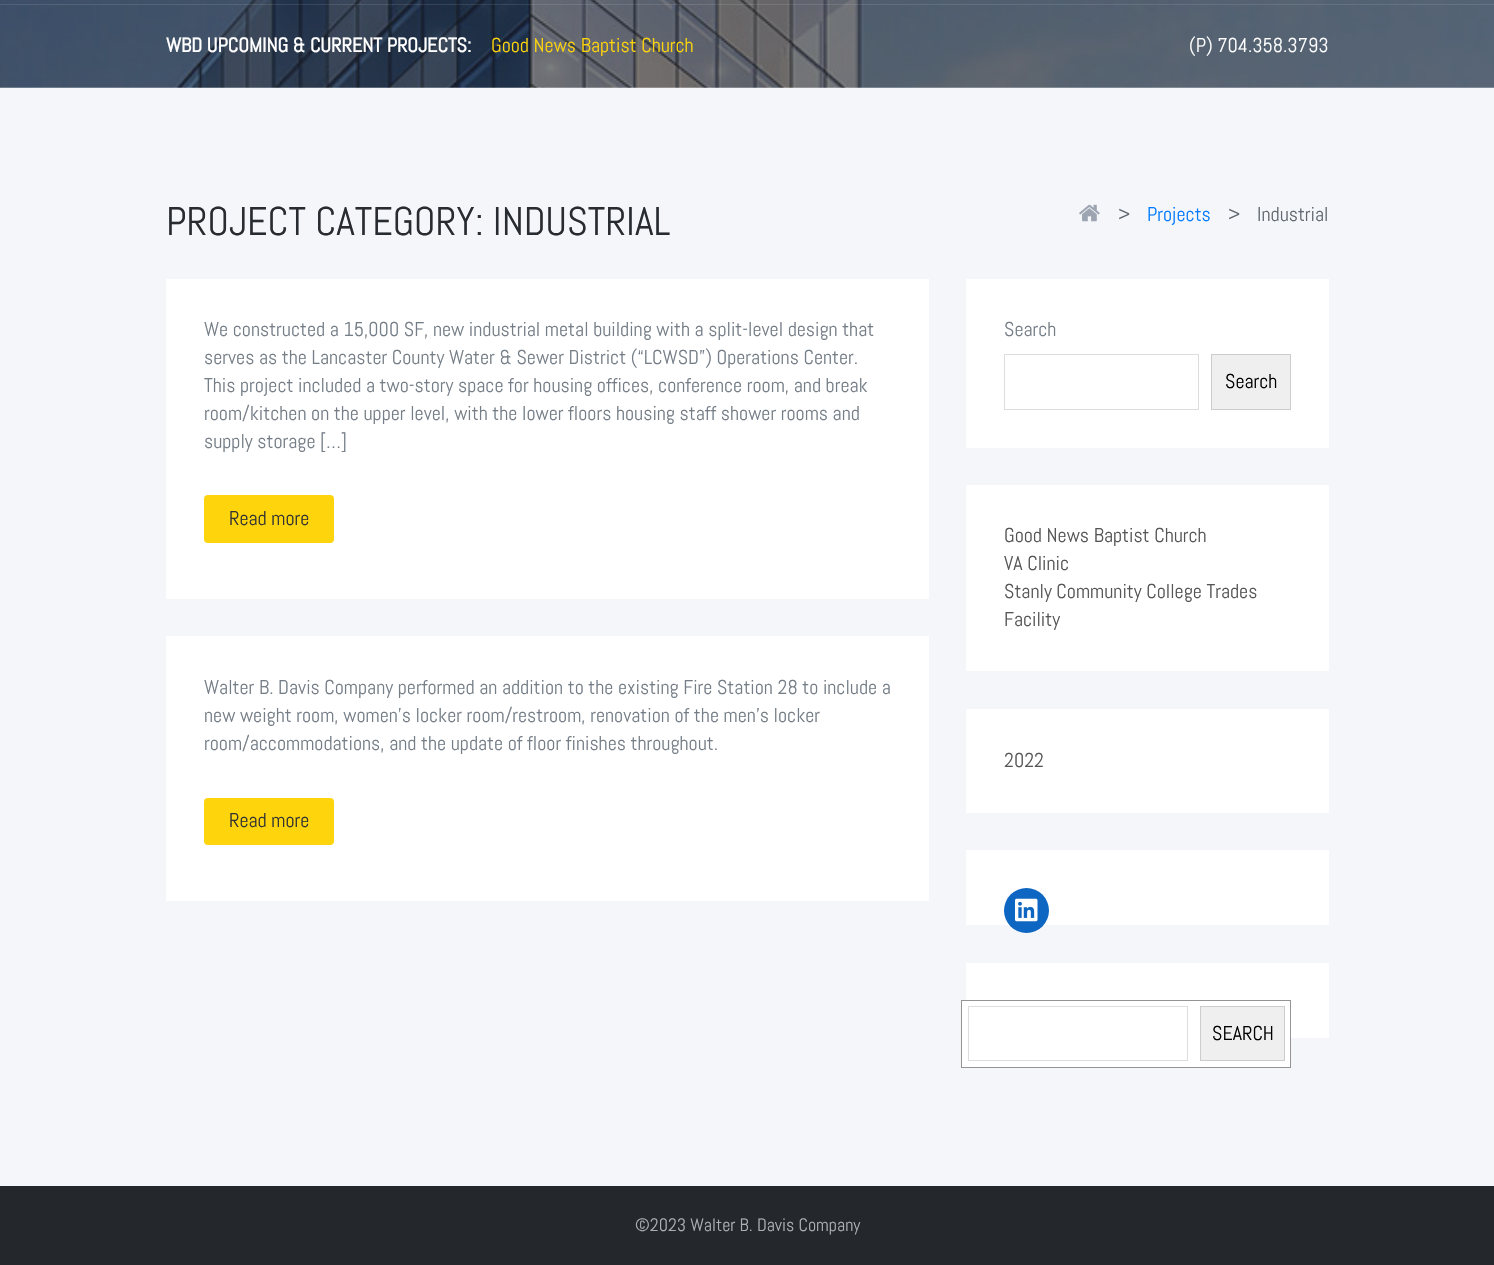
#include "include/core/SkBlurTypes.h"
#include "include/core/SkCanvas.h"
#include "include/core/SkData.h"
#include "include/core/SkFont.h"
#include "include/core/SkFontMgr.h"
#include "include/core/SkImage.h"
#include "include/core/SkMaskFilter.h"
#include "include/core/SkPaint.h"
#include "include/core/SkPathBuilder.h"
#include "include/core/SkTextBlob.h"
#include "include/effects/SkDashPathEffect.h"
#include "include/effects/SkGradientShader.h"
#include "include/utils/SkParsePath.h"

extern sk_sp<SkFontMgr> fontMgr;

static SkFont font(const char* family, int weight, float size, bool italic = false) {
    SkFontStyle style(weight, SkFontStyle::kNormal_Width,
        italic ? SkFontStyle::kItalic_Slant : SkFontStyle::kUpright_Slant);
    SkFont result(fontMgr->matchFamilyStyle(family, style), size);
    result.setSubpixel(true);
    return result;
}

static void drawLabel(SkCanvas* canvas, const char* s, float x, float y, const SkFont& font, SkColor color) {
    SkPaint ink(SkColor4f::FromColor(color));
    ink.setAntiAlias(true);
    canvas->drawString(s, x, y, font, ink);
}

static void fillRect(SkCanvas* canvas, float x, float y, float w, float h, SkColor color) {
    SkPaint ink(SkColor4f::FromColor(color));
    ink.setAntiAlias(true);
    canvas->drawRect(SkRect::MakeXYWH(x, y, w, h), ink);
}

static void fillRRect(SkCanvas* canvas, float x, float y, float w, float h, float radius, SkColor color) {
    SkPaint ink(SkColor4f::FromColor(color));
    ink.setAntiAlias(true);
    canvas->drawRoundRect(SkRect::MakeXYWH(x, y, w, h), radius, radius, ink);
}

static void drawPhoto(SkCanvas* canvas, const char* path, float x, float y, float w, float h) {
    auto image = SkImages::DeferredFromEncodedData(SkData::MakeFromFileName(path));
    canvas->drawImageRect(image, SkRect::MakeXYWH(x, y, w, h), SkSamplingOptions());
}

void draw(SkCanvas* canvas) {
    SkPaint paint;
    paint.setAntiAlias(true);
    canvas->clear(0xFFFFFFFF);
    drawPhoto(canvas, "assets/img1.png", 0, 0, 1494, 88);
    fillRect(canvas, 0, 4, 1494, 1, 0x1AFFFFFF);
    SkFont font1 = font("Abel", 700, 20);
    drawLabel(canvas, "WBD UPCOMING & CURRENT PROJECTS:", 166, 52, font1, 0xFFFFFFFF);
    SkFont font2 = font("Abel", 400, 20);
    drawLabel(canvas, "Good News Baptist Church", 491, 52, font2, 0xFFFED40D);
    drawLabel(canvas, "(P) 704.358.3793", 1189, 52, font2, 0xFFFFFFFF);
    fillRect(canvas, 0, 88, 1494, 1098, 0xFFF4F6F9);
    SkFont font3 = font("Abel", 400, 40);
    drawLabel(canvas, "PROJECT CATEGORY: INDUSTRIAL", 166, 235, font3, 0xFF282C30);
    drawPhoto(canvas, "assets/img2.png", 1079, 204, 21, 18);
    drawLabel(canvas, ">", 1118, 221, font2, 0xFF626871);
    drawLabel(canvas, "Projects", 1147, 221, font2, 0xFF007BFF);
    drawLabel(canvas, ">", 1228, 221, font2, 0xFF626871);
    drawLabel(canvas, "Industrial", 1257, 221, font2, 0xFF626871);
    fillRect(canvas, 166, 279, 763, 320, 0xFFFFFFFF);
    drawLabel(canvas, "We constructed a 15,000 SF, new industrial metal building with a split-level design that", 204, 336, font2, 0xFF757E87);
    drawLabel(canvas, "serves as the Lancaster County Water & Sewer District (“LCWSD”) Operations Center.", 204, 364, font2, 0xFF757E87);
    drawLabel(canvas, "This project included a two-story space for housing offices, conference room, and break", 204, 392, font2, 0xFF757E87);
    drawLabel(canvas, "room/kitchen on the upper level, with the lower floors housing staff shower rooms and", 204, 420, font2, 0xFF757E87);
    drawLabel(canvas, "supply storage […]", 204, 448, font2, 0xFF757E87);
    fillRRect(canvas, 204, 495, 130, 48, 4, 0xFFFED40D);
    drawLabel(canvas, "Read more", 229, 525, font2, 0xFF333333);
    fillRect(canvas, 166, 636, 763, 265, 0xFFFFFFFF);
    drawLabel(canvas, "Walter B. Davis Company performed an addition to the existing Fire Station 28 to include a", 204, 694, font2, 0xFF757E87);
    drawLabel(canvas, "new weight room, women’s locker room/restroom, renovation of the men’s locker", 204, 722, font2, 0xFF757E87);
    drawLabel(canvas, "room/accommodations, and the update of floor finishes throughout.", 204, 750, font2, 0xFF757E87);
    fillRRect(canvas, 204, 798, 130, 47, 4, 0xFFFED40D);
    drawLabel(canvas, "Read more", 229, 827, font2, 0xFF333333);
    fillRect(canvas, 966, 279, 363, 169, 0xFFFFFFFF);
    drawLabel(canvas, "Search", 1004, 336, font2, 0xFF757E87);
    paint.setStroke(true);
    paint.setStrokeWidth(1);
    paint.setColor(0xFFDDDDDD);
    canvas->drawRect(SkRect::MakeXYWH(1004.5f, 354.5f, 194, 55), paint);
    paint.setStroke(false);
    paint.setColor(0xFFEFEFEF);
    canvas->drawRect(SkRect::MakeXYWH(1211.5f, 354.5f, 79, 55), paint);
    paint.setStroke(true);
    paint.setColor(0xFFCCCCCC);
    canvas->drawRect(SkRect::MakeXYWH(1211.5f, 354.5f, 79, 55), paint);
    drawLabel(canvas, "Search", 1225, 388, font2, 0xFF000000);
    fillRect(canvas, 966, 485, 363, 186, 0xFFFFFFFF);
    drawLabel(canvas, "Good News Baptist Church", 1004, 542, font2, 0xFF555555);
    drawLabel(canvas, "VA Clinic", 1004, 570, font2, 0xFF555555);
    drawLabel(canvas, "Stanly Community College Trades", 1004, 598, font2, 0xFF555555);
    drawLabel(canvas, "Facility", 1004, 626, font2, 0xFF555555);
    fillRect(canvas, 966, 709, 363, 104, 0xFFFFFFFF);
    drawLabel(canvas, "2022", 1004, 767, font2, 0xFF555555);
    fillRect(canvas, 966, 850, 363, 75, 0xFFFFFFFF);
    paint.setStroke(false);
    paint.setColor(0xFF0D66C2);
    canvas->drawCircle(1026.5f, 910.5f, 22.5f, paint);
    drawPhoto(canvas, "assets/img3.png", 1015, 898, 23, 24);
    fillRect(canvas, 966, 963, 363, 75, 0xFFFFFFFF);
    paint.setColor(0xFFFFFFFF);
    canvas->drawRect(SkRect::MakeXYWH(961.5f, 1000.5f, 329, 67), paint);
    paint.setStroke(true);
    paint.setColor(0xFF949494);
    canvas->drawRect(SkRect::MakeXYWH(961.5f, 1000.5f, 329, 67), paint);
    paint.setColor(0xFFDDDDDD);
    canvas->drawRect(SkRect::MakeXYWH(968.5f, 1006.5f, 219, 54), paint);
    paint.setStroke(false);
    paint.setColor(0xFFEFEFEF);
    canvas->drawRect(SkRect::MakeXYWH(1200.5f, 1006.5f, 84, 54), paint);
    paint.setStroke(true);
    paint.setColor(0xFFCCCCCC);
    canvas->drawRect(SkRect::MakeXYWH(1200.5f, 1006.5f, 84, 54), paint);
    drawLabel(canvas, "SEARCH", 1212, 1040, font2, 0xFF000000);
    fillRect(canvas, 0, 1186, 1494, 79, 0xFF24282C);
    SkFont font4 = font("Abel", 400, 18);
    drawLabel(canvas, "©2023 Walter B. Davis Company", 635, 1231, font4, 0xFFACB0B4);
}
